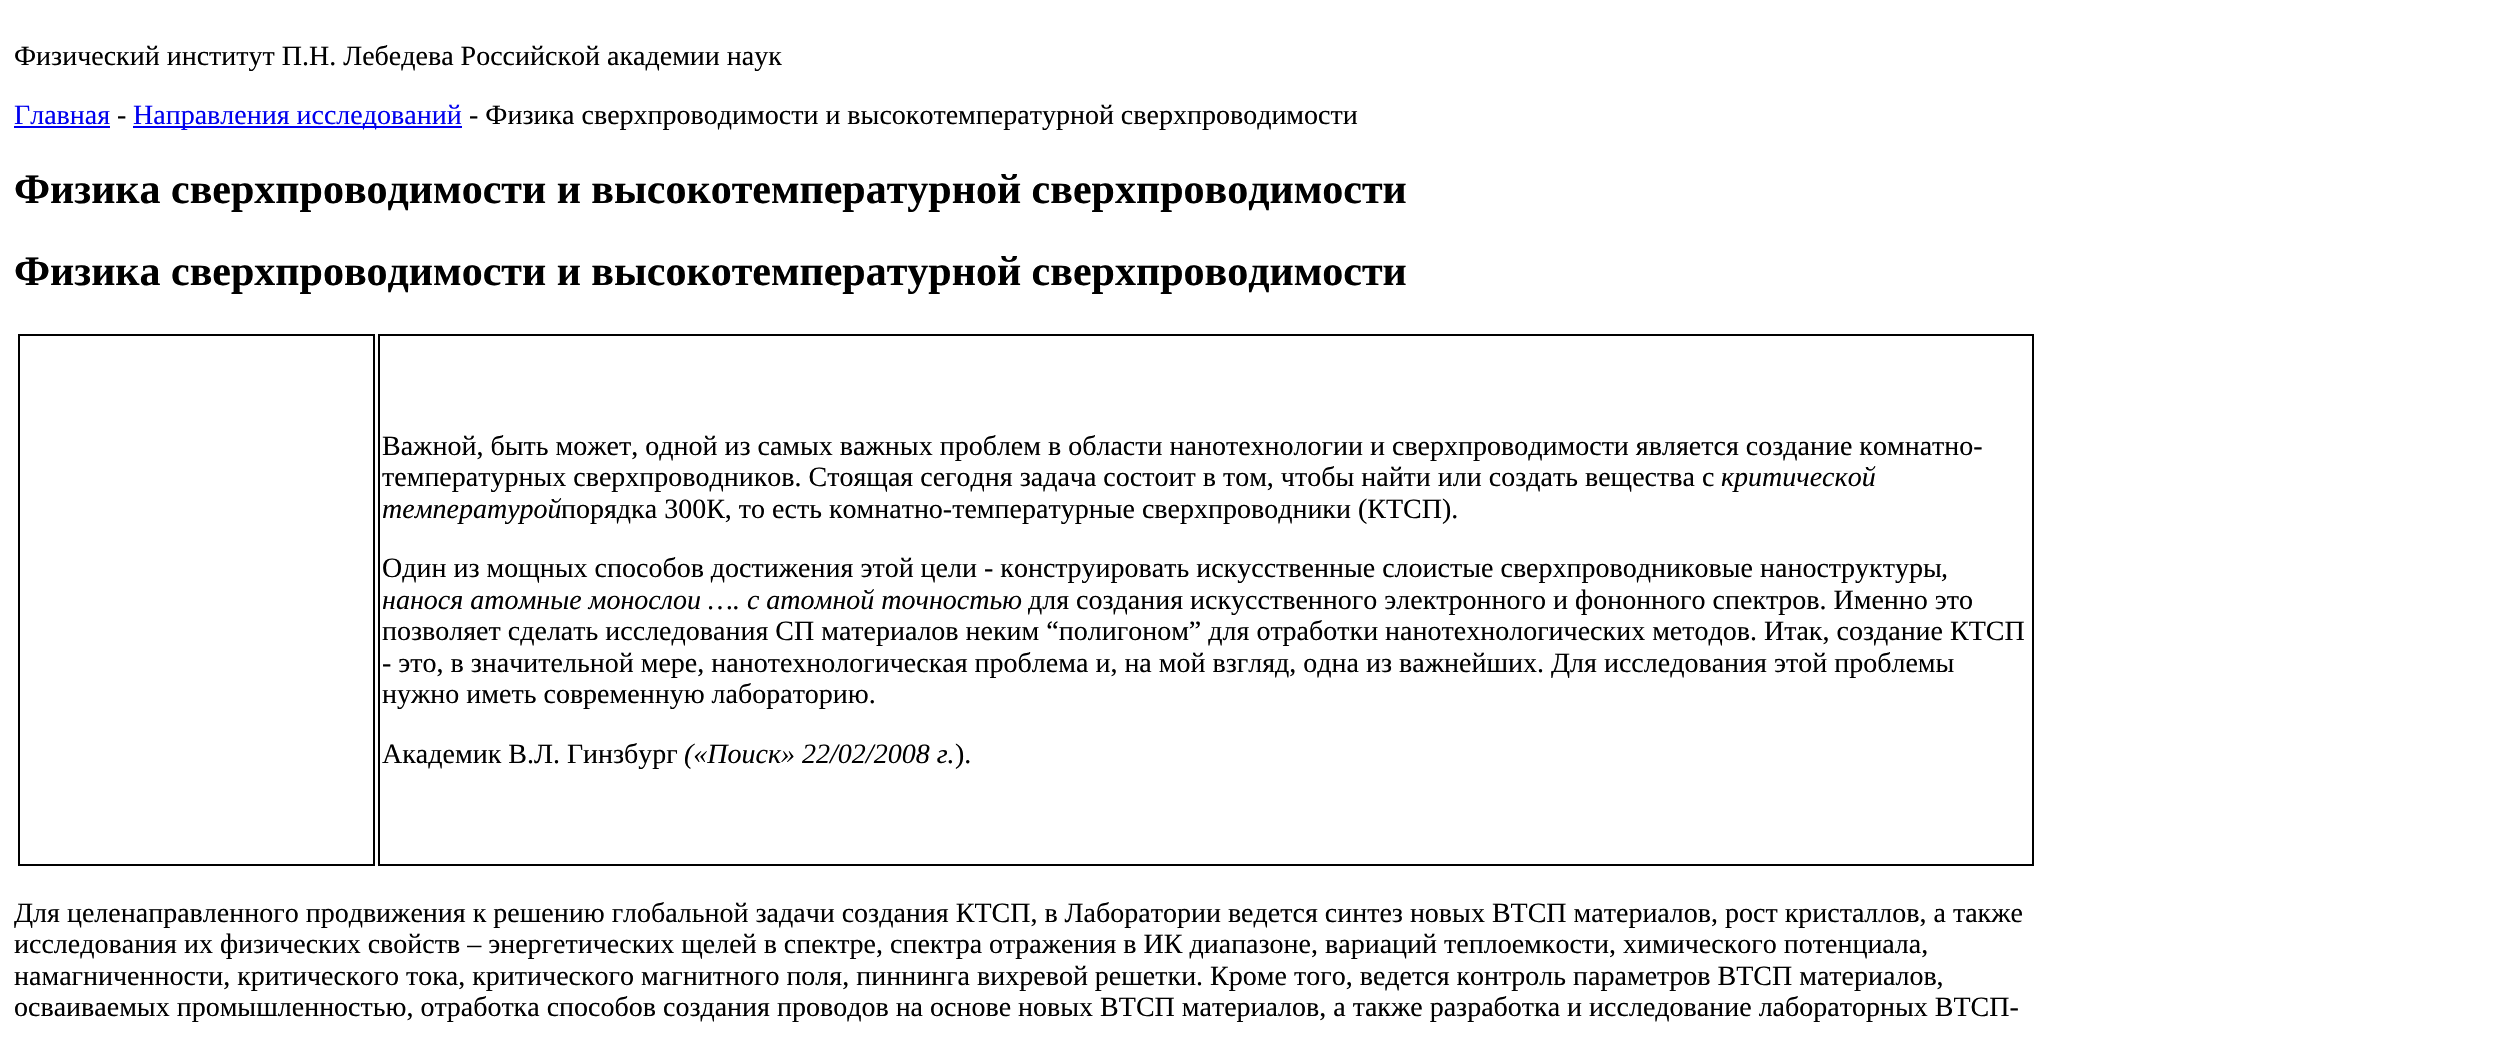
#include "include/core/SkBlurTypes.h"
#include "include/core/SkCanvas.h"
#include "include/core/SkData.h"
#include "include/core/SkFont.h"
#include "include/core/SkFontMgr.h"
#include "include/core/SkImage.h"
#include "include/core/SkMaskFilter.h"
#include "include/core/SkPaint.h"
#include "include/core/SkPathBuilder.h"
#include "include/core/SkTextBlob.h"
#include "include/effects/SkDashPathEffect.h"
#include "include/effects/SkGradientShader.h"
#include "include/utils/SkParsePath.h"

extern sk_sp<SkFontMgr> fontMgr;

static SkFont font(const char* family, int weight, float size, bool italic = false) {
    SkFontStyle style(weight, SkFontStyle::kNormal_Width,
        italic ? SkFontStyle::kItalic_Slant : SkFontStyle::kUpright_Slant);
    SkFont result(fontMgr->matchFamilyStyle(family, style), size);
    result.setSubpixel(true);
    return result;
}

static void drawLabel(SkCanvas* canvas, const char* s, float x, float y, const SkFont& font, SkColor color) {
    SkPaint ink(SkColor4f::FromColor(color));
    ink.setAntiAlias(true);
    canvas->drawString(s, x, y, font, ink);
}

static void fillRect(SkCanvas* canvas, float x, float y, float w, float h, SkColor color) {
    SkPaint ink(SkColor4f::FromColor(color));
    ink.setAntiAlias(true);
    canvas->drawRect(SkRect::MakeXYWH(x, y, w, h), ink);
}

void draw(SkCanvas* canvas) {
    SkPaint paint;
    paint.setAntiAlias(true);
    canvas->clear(0xFFFFFFFF);
    SkFont font1 = font("Liberation Serif", 400, 28);
    drawLabel(canvas, "Физический институт П.Н. Лебедева Российской академии наук", 14, 65, font1, 0xFF000000);
    drawLabel(canvas, "Главная", 14, 124, font1, 0xFF0000EE);
    fillRect(canvas, 14, 126, 96, 2, 0xFF0000EE);
    drawLabel(canvas, "-", 117, 124, font1, 0xFF000000);
    fillRect(canvas, 133, 126, 329, 2, 0xFF0000EE);
    drawLabel(canvas, "Направления исследований", 133, 124, font1, 0xFF0000EE);
    drawLabel(canvas, "- Физика сверхпроводимости и высокотемпературной сверхпроводимости", 469, 124, font1, 0xFF000000);
    SkFont font2 = font("Liberation Serif", 700, 42);
    drawLabel(canvas, "Физика сверхпроводимости и высокотемпературной сверхпроводимости", 14, 203, font2, 0xFF000000);
    drawLabel(canvas, "Физика сверхпроводимости и высокотемпературной сверхпроводимости", 14, 285, font2, 0xFF000000);
    paint.setStroke(true);
    paint.setStrokeWidth(2);
    paint.setColor(0xFF000000);
    canvas->drawRect(SkRect::MakeXYWH(19, 335, 355, 530), paint);
    canvas->drawRect(SkRect::MakeXYWH(379, 335, 1654, 530), paint);
    drawLabel(canvas, "Важной, быть может, одной из самых важных проблем в области нанотехнологии и сверхпроводимости является создание комнатно-", 382, 455, font1, 0xFF000000);
    drawLabel(canvas, "температурных сверхпроводников. Стоящая сегодня задача состоит в том, чтобы найти или создать вещества с", 382, 486, font1, 0xFF000000);
    SkFont font3 = font("Liberation Serif", 400, 28, true);
    drawLabel(canvas, "критической", 1721, 486, font3, 0xFF000000);
    drawLabel(canvas, "температурой", 382, 518, font3, 0xFF000000);
    drawLabel(canvas, "порядка 300К, то есть комнатно-температурные сверхпроводники (КТСП).", 561, 518, font1, 0xFF000000);
    drawLabel(canvas, "Один из мощных способов достижения этой цели - конструировать искусственные слоистые сверхпроводниковые наноструктуры", 382, 577, font1, 0xFF000000);
    drawLabel(canvas, ",", 1941, 577, font3, 0xFF000000);
    drawLabel(canvas, "нанося атомные монослои …. с атомной точностью", 382, 609, font3, 0xFF000000);
    drawLabel(canvas, "для создания искусственного электронного и фононного спектров. Именно это", 1028, 609, font1, 0xFF000000);
    drawLabel(canvas, "позволяет сделать исследования СП материалов неким “полигоном” для отработки нанотехнологических методов. Итак, создание КТСП", 382, 640, font1, 0xFF000000);
    drawLabel(canvas, "- это, в значительной мере, нанотехнологическая проблема и, на мой взгляд, одна из важнейших. Для исследования этой проблемы", 382, 672, font1, 0xFF000000);
    drawLabel(canvas, "нужно иметь современную лабораторию.", 382, 703, font1, 0xFF000000);
    drawLabel(canvas, "Академик В.Л. Гинзбург", 382, 763, font1, 0xFF000000);
    drawLabel(canvas, "(«Поиск» 22/02/2008 г.", 684, 763, font3, 0xFF000000);
    drawLabel(canvas, ").", 955, 763, font1, 0xFF000000);
    drawLabel(canvas, "Для целенаправленного продвижения к решению глобальной задачи создания КТСП, в Лаборатории ведется синтез новых ВТСП материалов, рост кристаллов, а также", 14, 922, font1, 0xFF000000);
    drawLabel(canvas, "исследования их физических свойств – энергетических щелей в спектре, спектра отражения в ИК диапазоне, вариаций теплоемкости, химического потенциала,", 14, 953, font1, 0xFF000000);
    drawLabel(canvas, "намагниченности, критического тока, критического магнитного поля, пиннинга вихревой решетки. Кроме того, ведется контроль параметров ВТСП материалов,", 14, 985, font1, 0xFF000000);
    drawLabel(canvas, "осваиваемых промышленностью, отработка способов создания проводов на основе новых ВТСП материалов, а также разработка и исследование лабораторных ВТСП-", 14, 1016, font1, 0xFF000000);
}
